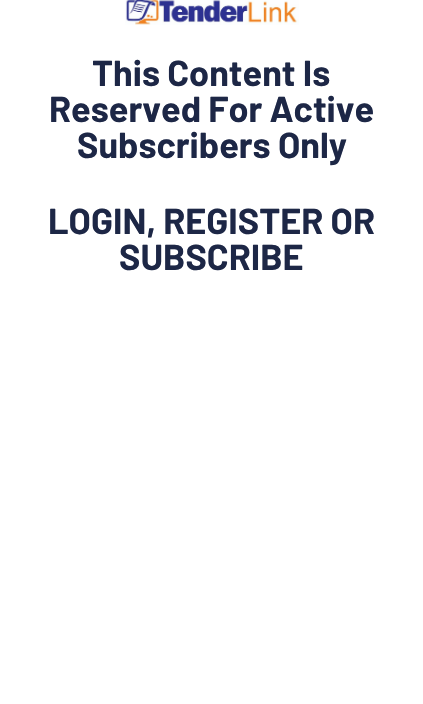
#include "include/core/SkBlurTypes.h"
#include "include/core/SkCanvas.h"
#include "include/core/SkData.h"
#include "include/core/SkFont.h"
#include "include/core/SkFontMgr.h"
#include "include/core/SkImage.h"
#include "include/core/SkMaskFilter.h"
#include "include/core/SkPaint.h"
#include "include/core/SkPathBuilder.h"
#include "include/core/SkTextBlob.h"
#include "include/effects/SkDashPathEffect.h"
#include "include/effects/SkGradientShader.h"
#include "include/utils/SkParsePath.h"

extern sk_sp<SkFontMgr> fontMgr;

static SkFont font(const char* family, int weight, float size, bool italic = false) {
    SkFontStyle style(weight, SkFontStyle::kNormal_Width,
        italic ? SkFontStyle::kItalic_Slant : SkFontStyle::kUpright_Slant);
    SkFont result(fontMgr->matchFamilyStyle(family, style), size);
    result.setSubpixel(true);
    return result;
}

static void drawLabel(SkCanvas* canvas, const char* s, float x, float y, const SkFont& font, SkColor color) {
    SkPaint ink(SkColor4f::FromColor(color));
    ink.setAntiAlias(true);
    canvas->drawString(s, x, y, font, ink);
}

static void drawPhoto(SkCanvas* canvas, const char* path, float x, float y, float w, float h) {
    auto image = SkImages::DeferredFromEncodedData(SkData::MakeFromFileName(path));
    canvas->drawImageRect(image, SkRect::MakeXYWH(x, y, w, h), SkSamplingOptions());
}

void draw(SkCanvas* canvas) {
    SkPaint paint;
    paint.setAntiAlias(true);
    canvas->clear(0xFFFFFFFF);
    drawPhoto(canvas, "assets/img1.png", 125, 0, 174, 25);
    SkFont font1 = font("Barlow", 700, 36);
    drawLabel(canvas, "This Content Is", 92, 86, font1, 0xFF1D2746);
    drawLabel(canvas, "Reserved For Active", 49, 122, font1, 0xFF1D2746);
    drawLabel(canvas, "Subscribers Only", 77, 158, font1, 0xFF1D2746);
    drawLabel(canvas, "LOGIN, REGISTER OR", 48, 234, font1, 0xFF1D2746);
    drawLabel(canvas, "SUBSCRIBE", 119, 270, font1, 0xFF1D2746);
}
